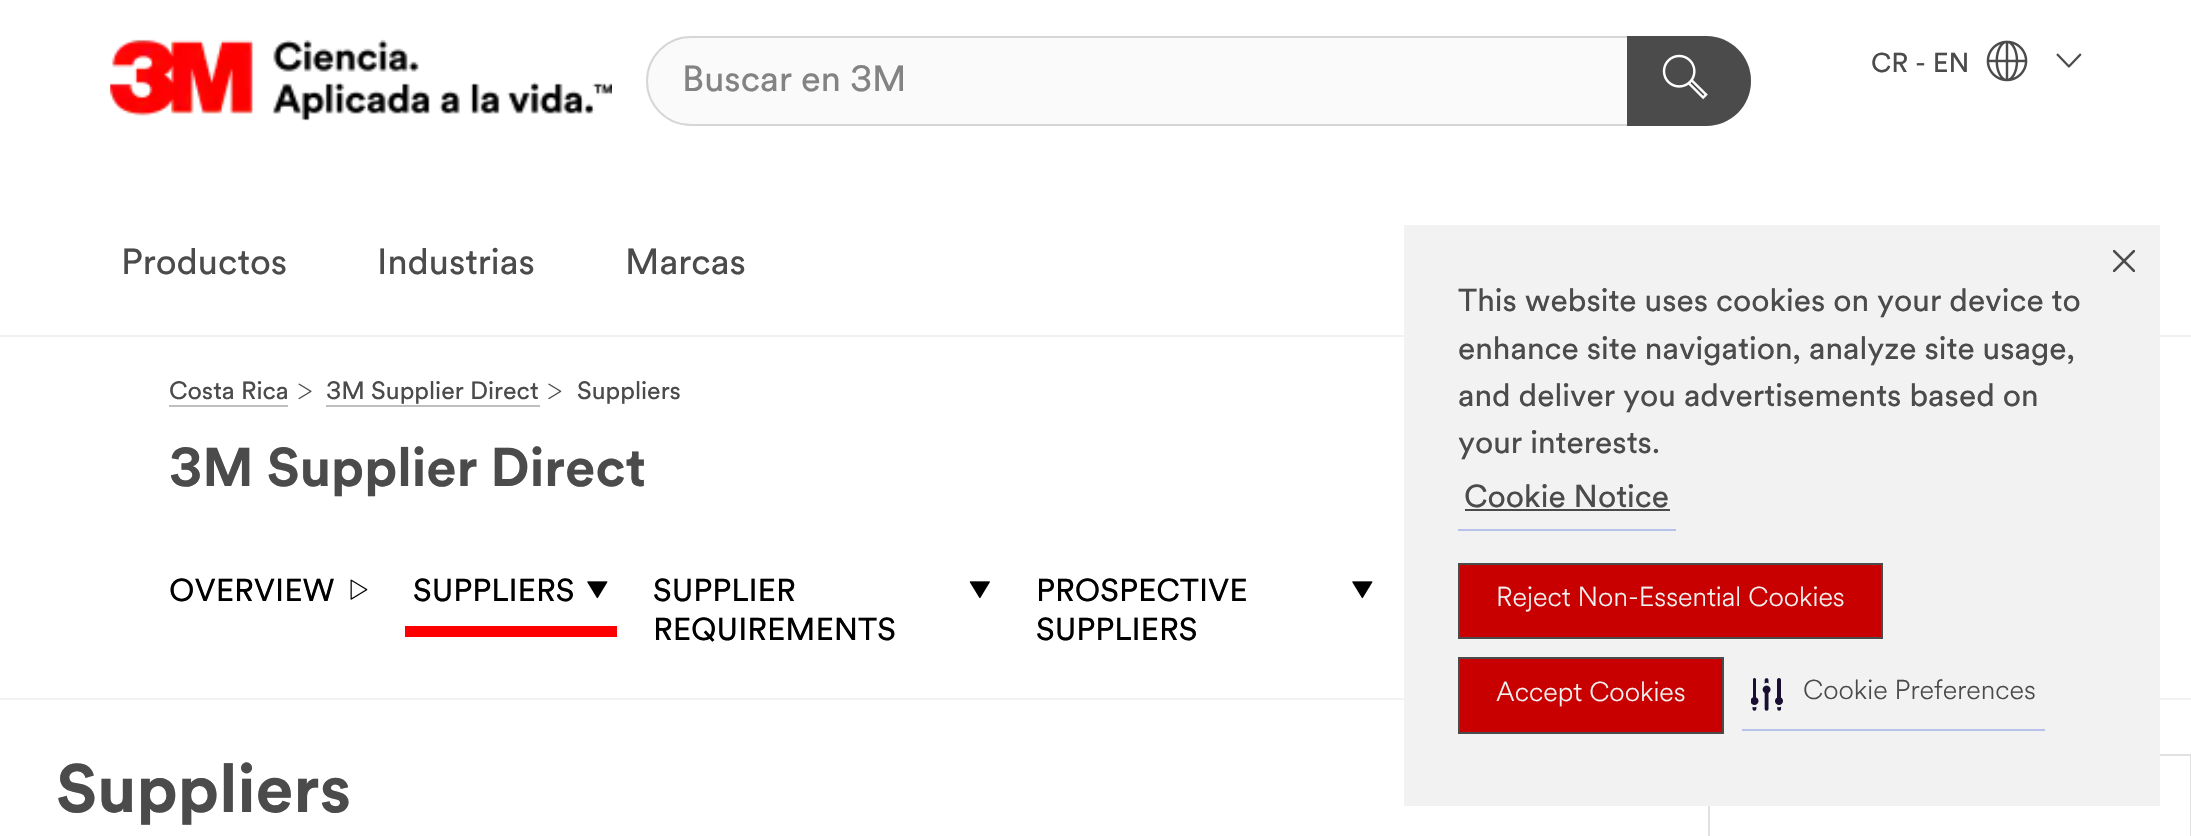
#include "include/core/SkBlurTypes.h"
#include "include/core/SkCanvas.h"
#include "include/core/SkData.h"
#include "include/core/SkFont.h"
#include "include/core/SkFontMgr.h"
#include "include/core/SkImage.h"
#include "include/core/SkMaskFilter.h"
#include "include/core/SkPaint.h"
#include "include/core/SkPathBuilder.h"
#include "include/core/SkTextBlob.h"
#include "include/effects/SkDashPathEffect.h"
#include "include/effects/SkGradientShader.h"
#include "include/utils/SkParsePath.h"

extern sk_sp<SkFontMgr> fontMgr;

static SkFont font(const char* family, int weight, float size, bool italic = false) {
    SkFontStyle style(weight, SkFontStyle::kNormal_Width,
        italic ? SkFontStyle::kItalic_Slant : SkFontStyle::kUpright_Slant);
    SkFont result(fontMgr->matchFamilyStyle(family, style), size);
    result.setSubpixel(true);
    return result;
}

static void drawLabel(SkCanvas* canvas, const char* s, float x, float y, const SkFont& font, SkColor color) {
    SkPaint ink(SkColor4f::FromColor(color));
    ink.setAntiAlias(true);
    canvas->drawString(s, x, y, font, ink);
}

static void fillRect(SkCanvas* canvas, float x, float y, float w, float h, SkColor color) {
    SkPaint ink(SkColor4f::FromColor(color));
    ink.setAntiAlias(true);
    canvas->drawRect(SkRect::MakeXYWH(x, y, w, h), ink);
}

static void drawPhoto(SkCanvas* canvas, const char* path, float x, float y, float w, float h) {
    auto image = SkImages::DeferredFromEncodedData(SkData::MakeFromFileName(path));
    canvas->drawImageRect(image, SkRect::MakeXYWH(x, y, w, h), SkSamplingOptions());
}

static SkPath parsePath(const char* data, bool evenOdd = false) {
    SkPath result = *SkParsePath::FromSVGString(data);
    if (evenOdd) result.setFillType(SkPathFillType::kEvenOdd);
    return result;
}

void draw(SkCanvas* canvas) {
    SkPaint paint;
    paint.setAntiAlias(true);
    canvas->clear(0xFFFFFFFF);
    fillRect(canvas, 0, 335, 2191, 2, 0xFFF2F2F2);
    SkFont font1 = font("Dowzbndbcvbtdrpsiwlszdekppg", 400, 27);
    drawLabel(canvas, "CR - EN", 1871, 72, font1, 0xFF4B4B4B);
    drawPhoto(canvas, "assets/img1.png", 1986, 40, 42, 42);
    drawPhoto(canvas, "assets/img2.png", 2056, 53, 26, 15);
    SkFont font2 = font("Dowzbndbcvbtdrpsiwlszdekppg", 400, 36);
    drawLabel(canvas, "Productos", 121, 274, font2, 0xFF4B4B4B);
    drawLabel(canvas, "Industrias", 377, 274, font2, 0xFF4B4B4B);
    drawLabel(canvas, "Marcas", 625, 274, font2, 0xFF4B4B4B);
    drawPhoto(canvas, "assets/img3.png", 110, 39, 502, 82);
    paint.setColor(0xFFFAFAFA);
    canvas->drawRoundRect(SkRect::MakeXYWH(647, 37, 1103, 88), 44, 44, paint);
    paint.setStroke(true);
    paint.setStrokeWidth(2);
    paint.setColor(0xFFD6D6D6);
    canvas->drawRoundRect(SkRect::MakeXYWH(647, 37, 1103, 88), 44, 44, paint);
    drawLabel(canvas, "Buscar en 3M", 682, 91, font2, 0xFF838383);
    paint.setStroke(false);
    paint.setColor(0xFF4B4B4B);
    canvas->drawPath(parsePath("M1627 36H1706C1731 36 1751 56 1751 81C1751 106 1731 126 1706 126H1627Z"), paint);
    drawPhoto(canvas, "assets/img4.png", 1662, 54, 46, 46);
    fillRect(canvas, 0, 698, 2191, 2, 0xFFF2F2F2);
    SkFont font3 = font("Dowzbndbcvbtdrpsiwlszdekppg", 400, 24.75f);
    drawLabel(canvas, "Costa Rica", 169, 399, font3, 0xFF4B4B4B);
    fillRect(canvas, 169, 405, 119, 2, 0xFFBFBFBF);
    drawPhoto(canvas, "assets/img5.png", 298, 383, 14, 17);
    drawLabel(canvas, "3M Supplier Direct", 326, 399, font3, 0xFF4B4B4B);
    fillRect(canvas, 326, 405, 214, 2, 0xFFBFBFBF);
    drawPhoto(canvas, "assets/img6.png", 548, 383, 14, 17);
    drawLabel(canvas, "Suppliers", 577, 399, font3, 0xFF4B4B4B);
    SkFont font4 = font("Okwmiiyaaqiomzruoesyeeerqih", 700, 54);
    drawLabel(canvas, "3M Supplier Direct", 169, 486, font4, 0xFF4B4B4B);
    SkFont font5 = font("Dowzbndbcvbtdrpsiwlszdekppg", 400, 31.5f);
    drawLabel(canvas, "OVERVIEW", 169, 601, font5, 0xFF000000);
    drawPhoto(canvas, "assets/img7.png", 350, 579, 18, 21);
    fillRect(canvas, 405, 626, 212, 11, 0xFFFF0000);
    drawLabel(canvas, "SUPPLIERS", 413, 601, font5, 0xFF000000);
    drawPhoto(canvas, "assets/img8.png", 587, 581, 21, 18);
    drawLabel(canvas, "SUPPLIER", 653, 601, font5, 0xFF000000);
    drawPhoto(canvas, "assets/img9.png", 969, 581, 21, 18);
    drawLabel(canvas, "REQUIREMENTS", 653, 640, font5, 0xFF000000);
    drawLabel(canvas, "PROSPECTIVE", 1036, 601, font5, 0xFF000000);
    drawPhoto(canvas, "assets/img8.png", 1352, 581, 21, 18);
    drawLabel(canvas, "SUPPLIERS", 1036, 640, font5, 0xFF000000);
    SkFont font6 = font("Okwmiiyaaqiomzruoesyeeerqih", 700, 67.5f);
    drawLabel(canvas, "Suppliers", 56, 812, font6, 0xFF4B4B4B);
    paint.setStroke(true);
    paint.setColor(0xFFE1E1E1);
    canvas->drawRect(SkRect::MakeXYWH(1709, 755, 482, 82), paint);
    fillRect(canvas, 1404, 225, 756, 581, 0xFFF2F2F2);
    drawLabel(canvas, "This website uses cookies on your device to", 1458, 311, font5, 0xFF4B4B4B);
    drawLabel(canvas, "enhance site navigation, analyze site usage,", 1458, 359, font5, 0xFF4B4B4B);
    drawLabel(canvas, "and deliver you advertisements based on", 1458, 406, font5, 0xFF4B4B4B);
    drawLabel(canvas, "your interests.", 1458, 453, font5, 0xFF4B4B4B);
    fillRect(canvas, 1458, 529, 218, 2, 0xFFB6C2E9);
    drawLabel(canvas, "Cookie Notice", 1464, 507, font5, 0xFF4B4B4B);
    fillRect(canvas, 1465, 509, 205, 2, 0xFF4B4B4B);
    drawPhoto(canvas, "assets/img10.png", 2113, 250, 22, 22);
    paint.setStroke(false);
    paint.setColor(0xFFC80000);
    canvas->drawRect(SkRect::MakeXYWH(1459, 564, 423, 74), paint);
    paint.setStroke(true);
    paint.setColor(0xFF4B4B4B);
    canvas->drawRect(SkRect::MakeXYWH(1459, 564, 423, 74), paint);
    SkFont font7 = font("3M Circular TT", 300, 27);
    drawLabel(canvas, "Reject Non-Essential Cookies", 1496, 606, font7, 0xFFF2F2F2);
    paint.setStroke(false);
    paint.setColor(0xFFC80000);
    canvas->drawRect(SkRect::MakeXYWH(1459, 658, 264, 75), paint);
    paint.setStroke(true);
    paint.setColor(0xFF4B4B4B);
    canvas->drawRect(SkRect::MakeXYWH(1459, 658, 264, 75), paint);
    drawLabel(canvas, "Accept Cookies", 1496, 701, font7, 0xFFF2F2F2);
    fillRect(canvas, 1742, 729, 303, 2, 0xFFB6C2E9);
    drawPhoto(canvas, "assets/img11.png", 1751, 678, 32, 33);
    drawLabel(canvas, "Cookie Preferences", 1803, 699, font7, 0xFF4B4B4B);
}
